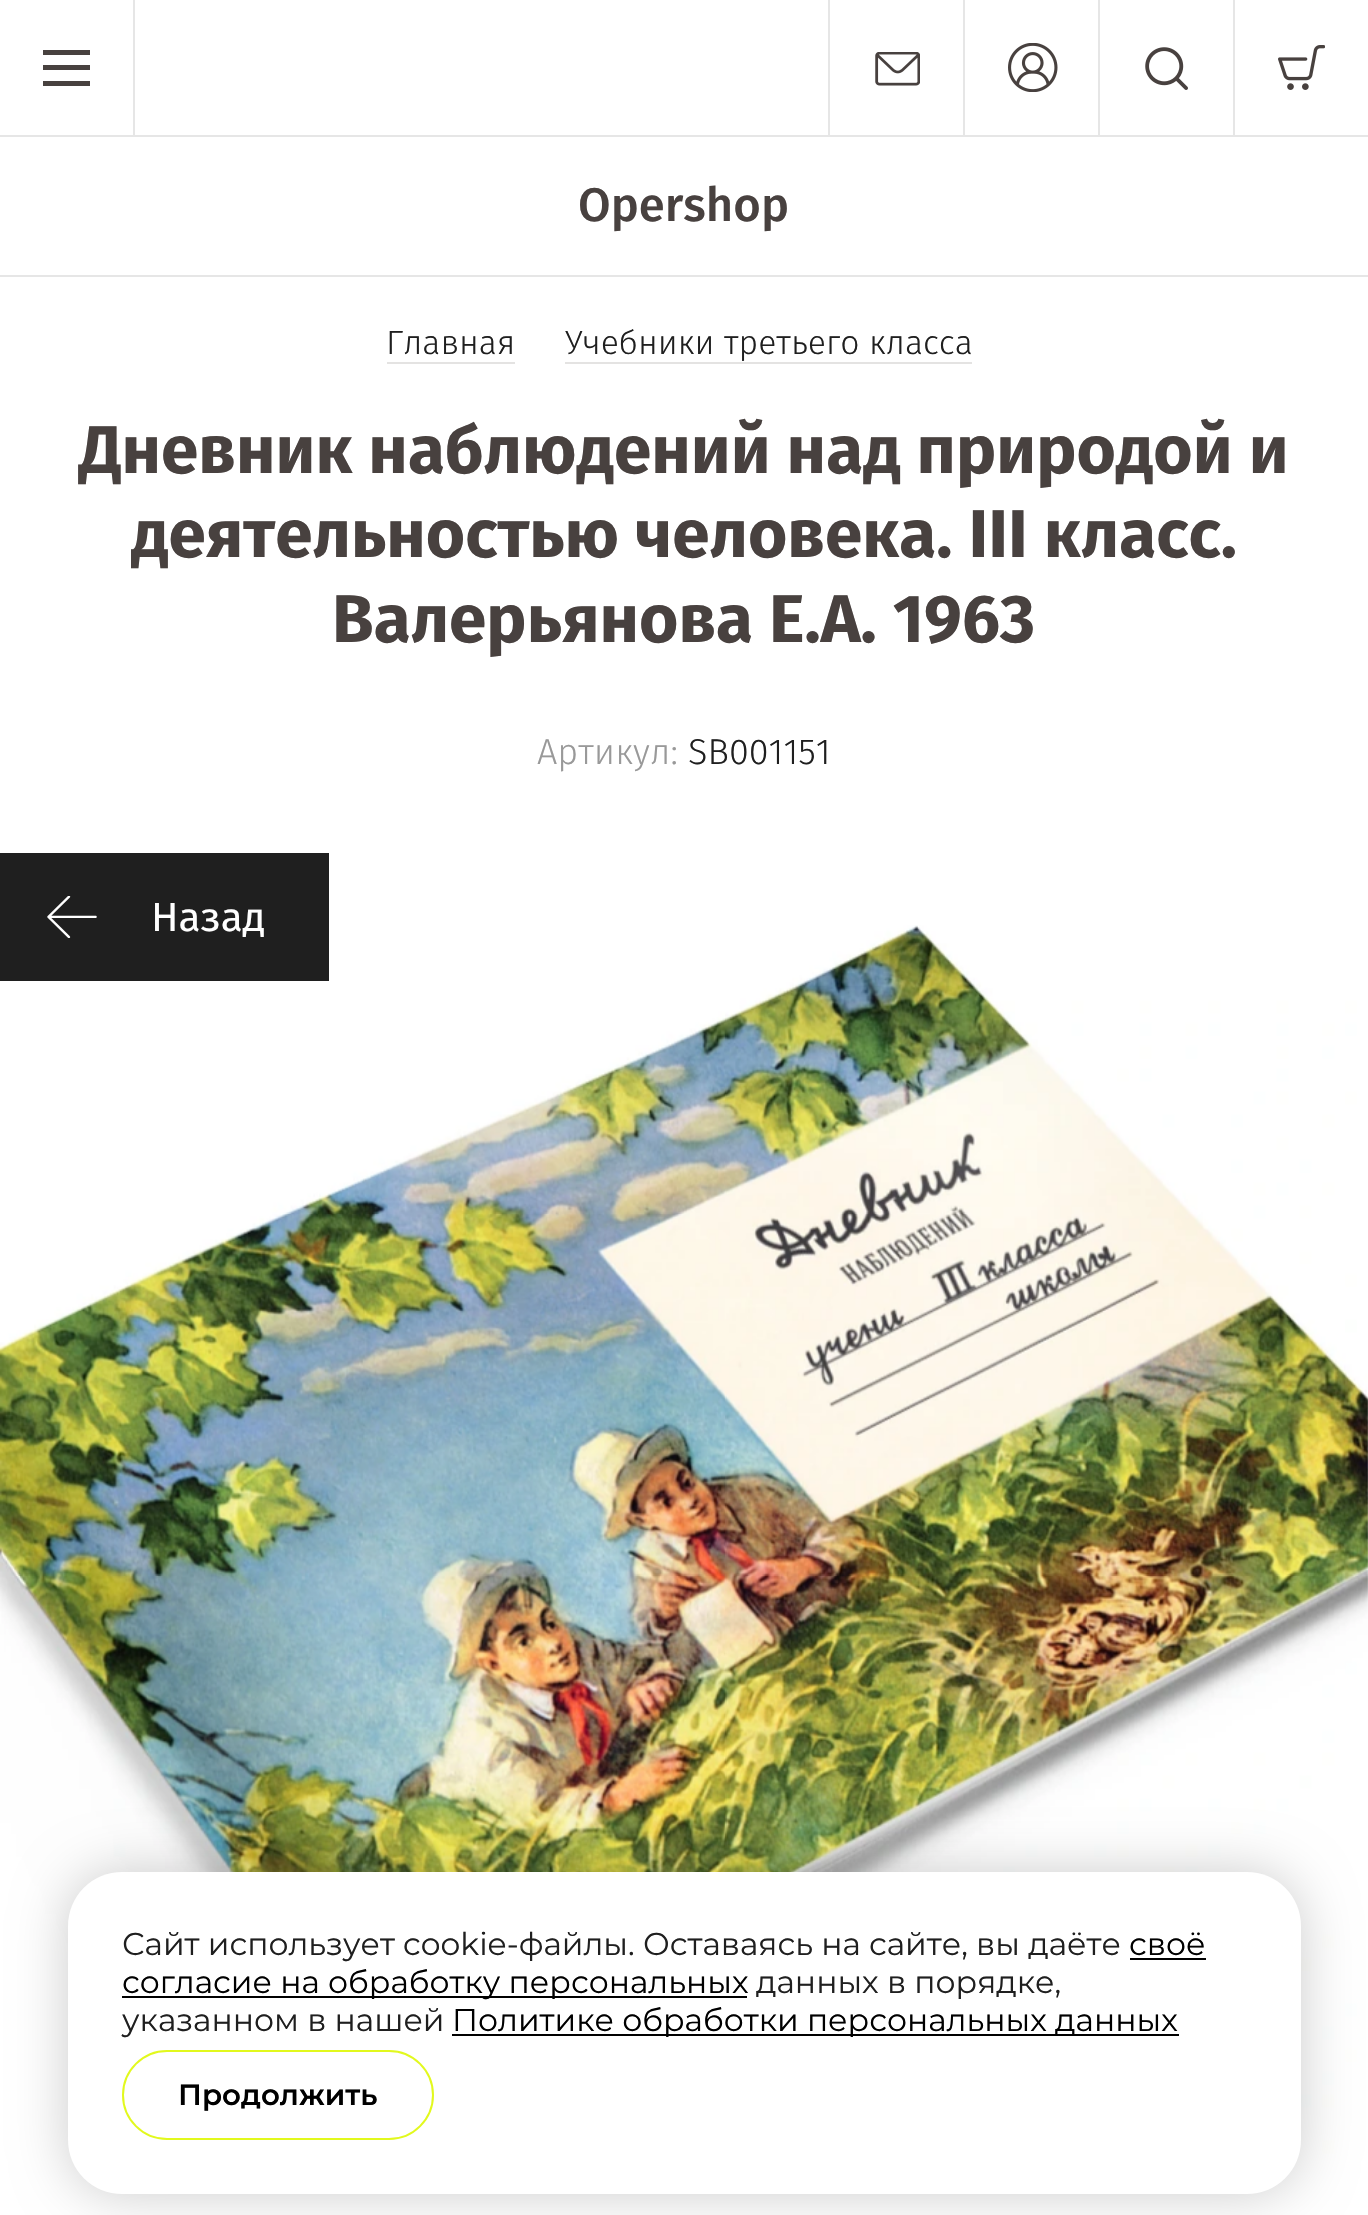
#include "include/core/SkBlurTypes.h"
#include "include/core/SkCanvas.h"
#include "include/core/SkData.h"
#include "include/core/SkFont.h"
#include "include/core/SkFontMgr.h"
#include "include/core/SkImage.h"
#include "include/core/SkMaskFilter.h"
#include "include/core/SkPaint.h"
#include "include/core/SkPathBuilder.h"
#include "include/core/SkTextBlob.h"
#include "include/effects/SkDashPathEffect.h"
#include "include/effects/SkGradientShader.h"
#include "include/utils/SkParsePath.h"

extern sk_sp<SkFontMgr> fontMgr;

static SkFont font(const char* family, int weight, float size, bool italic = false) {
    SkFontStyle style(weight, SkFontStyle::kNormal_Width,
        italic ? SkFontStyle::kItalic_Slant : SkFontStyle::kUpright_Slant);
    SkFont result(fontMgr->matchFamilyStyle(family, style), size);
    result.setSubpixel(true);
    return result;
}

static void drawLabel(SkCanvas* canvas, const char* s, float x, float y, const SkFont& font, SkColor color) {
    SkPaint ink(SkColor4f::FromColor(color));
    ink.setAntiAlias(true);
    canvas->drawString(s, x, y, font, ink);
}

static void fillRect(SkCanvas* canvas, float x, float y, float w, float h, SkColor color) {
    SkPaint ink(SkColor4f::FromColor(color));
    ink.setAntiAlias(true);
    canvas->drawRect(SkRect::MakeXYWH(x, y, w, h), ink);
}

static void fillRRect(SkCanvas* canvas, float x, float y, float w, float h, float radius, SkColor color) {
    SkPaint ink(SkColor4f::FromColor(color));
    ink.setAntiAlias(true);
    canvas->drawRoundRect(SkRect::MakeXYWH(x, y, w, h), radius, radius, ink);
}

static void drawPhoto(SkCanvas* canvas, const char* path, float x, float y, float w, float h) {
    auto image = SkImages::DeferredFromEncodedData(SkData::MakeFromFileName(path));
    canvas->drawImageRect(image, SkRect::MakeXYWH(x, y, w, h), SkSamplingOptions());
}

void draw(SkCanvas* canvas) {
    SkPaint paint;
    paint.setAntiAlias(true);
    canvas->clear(0xFFFFFFFF);
    fillRect(canvas, 0, 135, 1368, 2, 0xFFE6E6E6);
    fillRect(canvas, 133, 0, 2, 135, 0xFFE6E6E6);
    fillRect(canvas, 43, 50, 47, 5, 0xFF48413F);
    fillRect(canvas, 43, 65, 47, 5, 0xFF48413F);
    fillRect(canvas, 43, 81, 47, 5, 0xFF48413F);
    drawPhoto(canvas, "assets/img1.png", 875, 52, 45, 34);
    fillRect(canvas, 828, 0, 2, 135, 0xFFE6E6E6);
    drawPhoto(canvas, "assets/img2.png", 1008, 43, 50, 49);
    fillRect(canvas, 963, 0, 2, 135, 0xFFE6E6E6);
    drawPhoto(canvas, "assets/img3.png", 1145, 47, 43, 43);
    fillRect(canvas, 1098, 0, 2, 135, 0xFFE6E6E6);
    fillRect(canvas, 1233, 0, 2, 135, 0xFFE6E6E6);
    drawPhoto(canvas, "assets/img4.png", 1278, 45, 47, 45);
    fillRect(canvas, 0, 275, 1368, 2, 0xFFE6E6E6);
    SkFont font1 = font("Fira Sans", 500, 47.25f);
    drawLabel(canvas, "Opershop", 578, 221, font1, 0xFF48413F);
    SkFont font2 = font("Fira Sans", 300, 33.75f);
    drawLabel(canvas, "Главная", 386, 354, font2, 0xFF1F1F1F);
    fillRect(canvas, 387, 362, 128, 2, 0xFFE4E3E2);
    drawLabel(canvas, "Учебники третьего класса", 565, 354, font2, 0xFF1F1F1F);
    fillRect(canvas, 565, 362, 407, 2, 0xFFE4E3E2);
    SkFont font3 = font("Fira Sans", 700, 67.5f);
    drawLabel(canvas, "Дневник наблюдений над природой и", 79, 473, font3, 0xFF48413F);
    drawLabel(canvas, "деятельностью человека. III класс.", 131, 557, font3, 0xFF48413F);
    drawLabel(canvas, "Валерьянова Е.А. 1963", 332, 642, font3, 0xFF48413F);
    SkFont font4 = font("Fira Sans", 300, 36);
    drawLabel(canvas, "Артикул:", 537, 764, font4, 0xFF999999);
    drawLabel(canvas, "SB001151", 688, 764, font4, 0xFF1F1F1F);
    drawPhoto(canvas, "assets/img6.png", 0, 925, 1368, 1232);
    fillRect(canvas, 0, 853, 329, 128, 0xFF1F1F1F);
    drawPhoto(canvas, "assets/img5.png", 47, 896, 50, 42);
    SkFont font5 = font("Fira Sans", 400, 40.5f);
    drawLabel(canvas, "Назад", 151, 931, font5, 0xFFFFFFFF);
    paint.setColor(0x33000000);
    paint.setMaskFilter(SkMaskFilter::MakeBlur(kNormal_SkBlurStyle, 27));
    canvas->drawRoundRect(SkRect::MakeXYWH(68, 1872, 1233, 322), 54, 54, paint);
    paint.setMaskFilter(nullptr);
    fillRRect(canvas, 68, 1872, 1233, 322, 54, 0xFFFFFFFF);
    SkFont font6 = font("Montserrat", 400, 31.5f);
    drawLabel(canvas, "Сайт использует cookie-файлы. Оставаясь на сайте, вы даёте", 122, 1955, font6, 0xFF1F1F1F);
    drawLabel(canvas, "своё", 1129, 1955, font6, 0xFF000000);
    fillRect(canvas, 1130, 1958, 76, 2, 0xFF000000);
    fillRect(canvas, 122, 1996, 625, 2, 0xFF000000);
    drawLabel(canvas, "согласие на обработку персональных", 122, 1993, font6, 0xFF000000);
    drawLabel(canvas, "данных в порядке,", 756, 1993, font6, 0xFF1F1F1F);
    drawLabel(canvas, "указанном в нашей", 122, 2031, font6, 0xFF1F1F1F);
    fillRect(canvas, 452, 2034, 727, 2, 0xFF000000);
    drawLabel(canvas, "Политике обработки персональных данных", 452, 2031, font6, 0xFF000000);
    paint.setStroke(true);
    paint.setStrokeWidth(2);
    paint.setColor(0xFFE2F91D);
    canvas->drawRoundRect(SkRect::MakeXYWH(123, 2051, 310, 88), 44, 44, paint);
    SkFont font7 = font("Montserrat", 600, 29.25f);
    drawLabel(canvas, "Продолжить", 178, 2105, font7, 0xFF000000);
}
